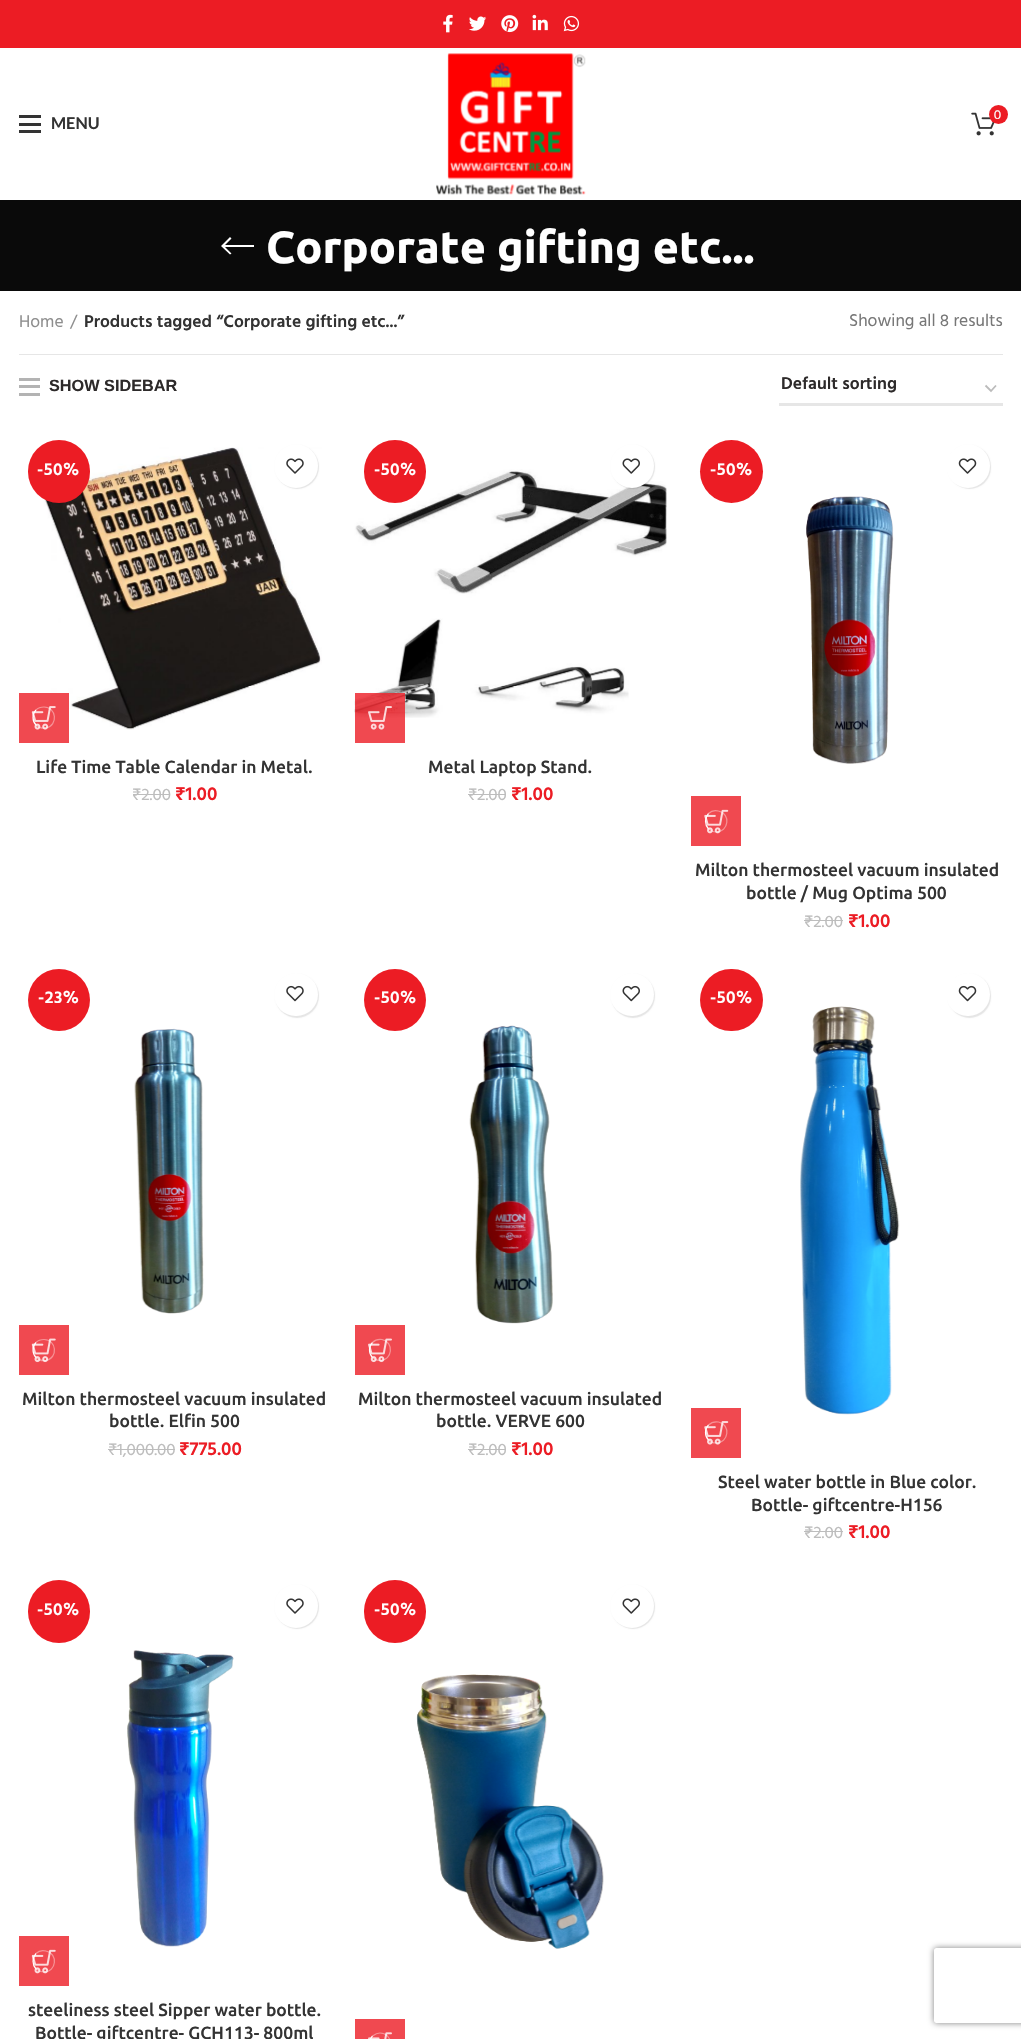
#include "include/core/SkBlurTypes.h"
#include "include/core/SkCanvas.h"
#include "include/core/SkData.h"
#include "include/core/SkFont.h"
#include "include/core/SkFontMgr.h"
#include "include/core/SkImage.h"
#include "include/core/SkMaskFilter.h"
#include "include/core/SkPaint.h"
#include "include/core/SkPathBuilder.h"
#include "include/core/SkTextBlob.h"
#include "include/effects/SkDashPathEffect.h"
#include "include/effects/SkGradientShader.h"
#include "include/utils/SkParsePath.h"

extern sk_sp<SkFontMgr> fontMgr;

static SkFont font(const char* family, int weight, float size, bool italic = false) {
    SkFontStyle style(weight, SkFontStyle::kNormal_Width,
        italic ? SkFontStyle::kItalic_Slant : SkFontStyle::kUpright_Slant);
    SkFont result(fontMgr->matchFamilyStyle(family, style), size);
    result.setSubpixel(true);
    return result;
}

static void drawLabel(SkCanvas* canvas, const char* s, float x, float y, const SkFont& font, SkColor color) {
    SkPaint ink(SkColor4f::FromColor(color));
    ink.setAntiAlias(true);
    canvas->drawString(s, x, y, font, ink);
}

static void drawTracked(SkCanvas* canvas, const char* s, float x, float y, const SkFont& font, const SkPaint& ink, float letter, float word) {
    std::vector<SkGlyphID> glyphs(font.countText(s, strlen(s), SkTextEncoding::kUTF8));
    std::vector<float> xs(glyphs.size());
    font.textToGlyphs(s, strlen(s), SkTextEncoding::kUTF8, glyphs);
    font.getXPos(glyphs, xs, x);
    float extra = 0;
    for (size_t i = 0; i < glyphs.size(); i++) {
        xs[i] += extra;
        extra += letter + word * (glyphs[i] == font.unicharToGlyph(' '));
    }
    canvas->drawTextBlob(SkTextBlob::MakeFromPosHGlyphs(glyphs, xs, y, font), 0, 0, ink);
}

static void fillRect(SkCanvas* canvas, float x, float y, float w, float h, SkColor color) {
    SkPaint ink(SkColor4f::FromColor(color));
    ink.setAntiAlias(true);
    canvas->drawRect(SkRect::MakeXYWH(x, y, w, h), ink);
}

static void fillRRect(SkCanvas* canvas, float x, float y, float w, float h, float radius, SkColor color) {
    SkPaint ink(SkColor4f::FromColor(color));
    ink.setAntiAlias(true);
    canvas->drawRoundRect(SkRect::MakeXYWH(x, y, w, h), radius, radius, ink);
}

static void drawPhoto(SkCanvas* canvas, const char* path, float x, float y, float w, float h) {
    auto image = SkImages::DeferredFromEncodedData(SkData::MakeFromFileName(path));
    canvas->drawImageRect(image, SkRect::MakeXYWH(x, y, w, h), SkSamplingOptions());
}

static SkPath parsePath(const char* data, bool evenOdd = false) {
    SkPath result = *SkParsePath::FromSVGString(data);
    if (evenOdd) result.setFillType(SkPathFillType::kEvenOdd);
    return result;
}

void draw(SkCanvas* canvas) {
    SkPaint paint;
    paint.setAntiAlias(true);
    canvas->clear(0xFFFFFFFF);
    fillRect(canvas, 0, 0, 1021, 48, 0xFFEC1C24);
    drawPhoto(canvas, "assets/img1.png", 443, 14, 10, 19);
    drawPhoto(canvas, "assets/img2.png", 469, 16, 18, 15);
    drawPhoto(canvas, "assets/img3.png", 501, 15, 18, 18);
    drawPhoto(canvas, "assets/img4.png", 532, 14, 16, 17);
    drawPhoto(canvas, "assets/img5.png", 563, 15, 17, 17);
    drawPhoto(canvas, "assets/img6.png", 436, 53, 150, 142);
    drawPhoto(canvas, "assets/img7.png", 971, 112, 24, 24);
    paint.setColor(0xFFEC1C24);
    canvas->drawCircle(998.5f, 114.5f, 9.5f, paint);
    SkFont font1 = font("Lato", 400, 12);
    drawLabel(canvas, "0", 994, 119, font1, 0xFFFFFFFF);
    fillRect(canvas, 19, 123, 22, 3, 0xFF333333);
    fillRect(canvas, 19, 115, 22, 3, 0xFF333333);
    fillRect(canvas, 19, 130, 22, 3, 0xFF333333);
    SkFont font2 = font("Lato", 700, 16.25f);
    drawLabel(canvas, "MENU", 51, 129, font2, 0xFF333333);
    fillRect(canvas, 0, 200, 1021, 91, 0xFF0A0A0A);
    paint.setColor(0xFFFFFFFF);
    canvas->drawPath(parsePath("M254 245V247H225L231.5 253.5L230 254.5L221 246L230 237L231.5 238.5L225 245Z"), paint);
    SkFont font3 = font("Ubuntu", 700, 45);
    drawLabel(canvas, "Corporate gifting etc...", 266, 263, font3, 0xFFFFFFFF);
    fillRect(canvas, 19, 354, 984, 1, 0xFFE6E6E6);
    SkFont font4 = font("Hind", 400, 17.5f);
    drawLabel(canvas, "Home", 19, 327, font4, 0xFF8E8E8E);
    drawLabel(canvas, "/", 70, 327, font4, 0xFF8E8E8E);
    SkFont font5 = font("Hind", 600, 17.5f);
    drawLabel(canvas, "Products tagged “Corporate gifting etc...”", 84, 327, font5, 0xFF333333);
    drawLabel(canvas, "Showing all 8 results", 849, 326, font4, 0xFF777777);
    fillRect(canvas, 19, 385, 21, 3, 0xFFB3B3B3);
    fillRect(canvas, 19, 378, 21, 3, 0xFFB3B3B3);
    fillRect(canvas, 19, 393, 21, 3, 0xFFB3B3B3);
    SkFont font6 = font("Liberation Sans", 700, 16.25f);
    drawLabel(canvas, "SHOW SIDEBAR", 49, 391, font6, 0xFF2D2A2A);
    paint.setStroke(true);
    paint.setStrokeWidth(1.8f);
    paint.setColor(0xFFBBBBBB);
    canvas->drawPath(parsePath("M985.5 385.5L991 391L996 385.5"), paint);
    fillRect(canvas, 779, 403, 224, 3, 0xFFE6E6E6);
    drawLabel(canvas, "Default sorting", 781, 389, font5, 0xFF2D2A2A);
    drawPhoto(canvas, "assets/img8.png", 43, 447, 279, 283);
    fillRRect(canvas, 28, 440, 62, 63, 31, 0xFFEC1C24);
    paint.setStroke(false);
    paint.setColor(0xFFFFFFFF);
    drawTracked(canvas, "-50%", 37, 475, font5, paint, 0.5f, 0);
    paint.setColor(0x1A000000);
    paint.setMaskFilter(SkMaskFilter::MakeBlur(kNormal_SkBlurStyle, 0.5f));
    canvas->drawRoundRect(SkRect::MakeXYWH(275, 445, 44, 44), 22, 22, paint);
    paint.setMaskFilter(nullptr);
    paint.setColor(0xFFFFFFFF);
    canvas->drawCircle(296, 466, 22, paint);
    drawPhoto(canvas, "assets/img9.png", 286, 458, 18, 16);
    fillRect(canvas, 19, 693, 50, 50, 0xFFF04950);
    drawPhoto(canvas, "assets/img10.png", 31, 706, 25, 24);
    paint.setStroke(true);
    paint.setStrokeWidth(1.2f);
    paint.setColor(0x66FFFFFF);
    canvas->drawPath(parsePath("M36 710C38 708 41 707 44 707C56.5 707 58.5 725.5 46 728C42.5 728.5 38.5 727.5 36 725"), paint);
    paint.setColor(0xFFFFFFFF);
    canvas->drawPath(parsePath("M36 725C32 721 32 714 36 710"), paint);
    SkFont font7 = font("Ubuntu", 500, 17.5f);
    drawLabel(canvas, "Life Time Table Calendar in Metal.", 36, 773, font7, 0xFF333333);
    SkFont font8 = font("Hind", 400, 17);
    drawLabel(canvas, "₹2.00", 132, 800, font8, 0xFFBDBDBD);
    fillRect(canvas, 133, 794, 37, 1, 0xFFBDBDBD);
    SkFont font9 = font("Hind", 600, 19);
    drawLabel(canvas, "₹1.00", 175, 800, font9, 0xFFEC1C24);
    drawPhoto(canvas, "assets/img11.png", 354, 469, 313, 249);
    fillRRect(canvas, 364, 440, 62, 63, 31, 0xFFEC1C24);
    paint.setStroke(false);
    drawTracked(canvas, "-50%", 374, 475, font5, paint, 0.5f, 0);
    paint.setColor(0x1A000000);
    paint.setMaskFilter(SkMaskFilter::MakeBlur(kNormal_SkBlurStyle, 0.5f));
    canvas->drawRoundRect(SkRect::MakeXYWH(611, 445, 44, 44), 22, 22, paint);
    paint.setMaskFilter(nullptr);
    paint.setColor(0xFFFFFFFF);
    canvas->drawCircle(632, 466, 22, paint);
    drawPhoto(canvas, "assets/img12.png", 622, 458, 18, 16);
    fillRect(canvas, 355, 693, 50, 50, 0xCCEC1C24);
    drawPhoto(canvas, "assets/img13.png", 368, 706, 24, 24);
    drawLabel(canvas, "Metal Laptop Stand.", 428, 773, font7, 0xFF333333);
    drawLabel(canvas, "₹", 468, 800, font8, 0xFFBDBDBD);
    fillRect(canvas, 468, 794, 10, 1, 0xFFBDBDBD);
    drawLabel(canvas, "2.00", 477, 800, font8, 0xFFBDBDBD);
    fillRect(canvas, 478, 794, 28, 1, 0xFFBDBDBD);
    drawLabel(canvas, "₹1.00", 511, 800, font9, 0xFFEC1C24);
    paint.setColor(0xFFEC1C24);
    canvas->drawCircle(731.5f, 471.5f, 31.5f, paint);
    paint.setColor(0xFFFFFFFF);
    drawTracked(canvas, "-50%", 710, 475, font5, paint, 0.5f, 0);
    drawPhoto(canvas, "assets/img14.png", 806, 496, 88, 268);
    paint.setColor(0x1A000000);
    paint.setMaskFilter(SkMaskFilter::MakeBlur(kNormal_SkBlurStyle, 0.5f));
    canvas->drawRoundRect(SkRect::MakeXYWH(948, 445, 43, 44), 21.5f, 21.5f, paint);
    paint.setMaskFilter(nullptr);
    paint.setColor(0xFFFFFFFF);
    canvas->drawCircle(968, 466, 22, paint);
    drawPhoto(canvas, "assets/img15.png", 958, 458, 19, 16);
    fillRect(canvas, 691, 796, 50, 50, 0xFFF04950);
    drawPhoto(canvas, "assets/img16.png", 704, 809, 25, 25);
    paint.setStroke(true);
    paint.setColor(0x66FFFFFF);
    canvas->drawPath(parsePath("M708.5 813.5C711 811 715 810 718.5 811C731 813.5 729 832 716 832C713.5 832 710.5 830.5 708.5 829"), paint);
    paint.setColor(0xFFFFFFFF);
    canvas->drawPath(parsePath("M708.5 829C704.5 824.5 704.5 818 708.5 813.5"), paint);
    drawLabel(canvas, "Milton thermosteel vacuum insulated", 695, 876, font7, 0xFF333333);
    drawLabel(canvas, "bottle / Mug Optima 500", 746, 899, font7, 0xFF333333);
    drawLabel(canvas, "₹2.00", 804, 927, font8, 0xFFBDBDBD);
    fillRect(canvas, 804, 920, 39, 1, 0xFFBDBDBD);
    drawLabel(canvas, "₹1.00", 848, 927, font9, 0xFFEC1C24);
    paint.setStroke(false);
    paint.setColor(0xFFEC1C24);
    canvas->drawCircle(59, 1000, 31, paint);
    paint.setColor(0xFFFFFFFF);
    drawTracked(canvas, "-23%", 38, 1003, font5, paint, 0.5f, 0);
    drawPhoto(canvas, "assets/img17.png", 134, 1028, 70, 286);
    paint.setColor(0x1A000000);
    paint.setMaskFilter(SkMaskFilter::MakeBlur(kNormal_SkBlurStyle, 0.5f));
    canvas->drawRoundRect(SkRect::MakeXYWH(275, 974, 44, 44), 22, 22, paint);
    paint.setMaskFilter(nullptr);
    fillRRect(canvas, 274, 973, 44, 43, 21.5f, 0xFFFFFFFF);
    drawPhoto(canvas, "assets/img18.png", 286, 985, 18, 17);
    fillRect(canvas, 19, 1325, 50, 50, 0xFFF04950);
    drawPhoto(canvas, "assets/img19.png", 31, 1338, 25, 25);
    paint.setStroke(true);
    paint.setColor(0x66FFFFFF);
    canvas->drawPath(parsePath("M36 1342.5C38 1340.5 41 1339.5 44 1339.5C56.5 1339.5 58.5 1358 46 1360.5C42.5 1361 38.5 1360 36 1357.5"), paint);
    paint.setColor(0xFFFFFFFF);
    canvas->drawPath(parsePath("M36 1357.5C32 1353.5 32 1346.5 36 1342.5"), paint);
    drawLabel(canvas, "Milton thermosteel vacuum insulated", 22, 1405, font7, 0xFF333333);
    drawLabel(canvas, "bottle. Elfin 500", 109, 1427, font7, 0xFF333333);
    drawLabel(canvas, "₹1,000.00", 108, 1455, font8, 0xFFBDBDBD);
    fillRect(canvas, 108, 1449, 67, 1, 0xFFBDBDBD);
    drawLabel(canvas, "₹775.00", 179, 1455, font9, 0xFFEC1C24);
    paint.setStroke(false);
    paint.setColor(0xFFEC1C24);
    canvas->drawCircle(395, 1000, 31, paint);
    paint.setColor(0xFFFFFFFF);
    drawTracked(canvas, "-50%", 374, 1003, font5, paint, 0.5f, 0);
    drawPhoto(canvas, "assets/img20.png", 469, 1025, 84, 299);
    paint.setColor(0x1A000000);
    paint.setMaskFilter(SkMaskFilter::MakeBlur(kNormal_SkBlurStyle, 0.5f));
    canvas->drawRoundRect(SkRect::MakeXYWH(611, 974, 44, 44), 22, 22, paint);
    paint.setMaskFilter(nullptr);
    fillRRect(canvas, 610, 973, 44, 43, 21.5f, 0xFFFFFFFF);
    drawPhoto(canvas, "assets/img21.png", 622, 985, 18, 17);
    fillRect(canvas, 355, 1325, 50, 50, 0xFFF04950);
    drawPhoto(canvas, "assets/img22.png", 368, 1338, 24, 25);
    paint.setStroke(true);
    paint.setColor(0x66FFFFFF);
    canvas->drawPath(parsePath("M372.5 1342.5C375 1340 378.5 1339 382 1339.5C394.5 1342 392.5 1360.5 380 1360.5C377 1360.5 374.5 1359.5 372.5 1357.5"), paint);
    paint.setColor(0xFFFFFFFF);
    canvas->drawPath(parsePath("M372.5 1357.5C368.5 1353.5 368.5 1346.5 372.5 1342.5"), paint);
    drawLabel(canvas, "Milton thermosteel vacuum insulated", 358, 1405, font7, 0xFF333333);
    drawLabel(canvas, "bottle. VERVE 600", 436, 1427, font7, 0xFF333333);
    drawLabel(canvas, "₹", 468, 1455, font8, 0xFFBDBDBD);
    fillRect(canvas, 468, 1449, 10, 1, 0xFFBDBDBD);
    drawLabel(canvas, "2.00", 477, 1455, font8, 0xFFBDBDBD);
    fillRect(canvas, 478, 1449, 28, 1, 0xFFBDBDBD);
    drawLabel(canvas, "₹1.00", 511, 1455, font9, 0xFFEC1C24);
    fillRRect(canvas, 700, 969, 63, 62, 31, 0xFFEC1C24);
    paint.setStroke(false);
    drawTracked(canvas, "-50%", 710, 1003, font5, paint, 0.5f, 0);
    drawPhoto(canvas, "assets/img23.png", 800, 1006, 100, 409);
    paint.setColor(0x1A000000);
    paint.setMaskFilter(SkMaskFilter::MakeBlur(kNormal_SkBlurStyle, 0.5f));
    canvas->drawRoundRect(SkRect::MakeXYWH(948, 974, 43, 44), 21.5f, 21.5f, paint);
    paint.setMaskFilter(nullptr);
    fillRRect(canvas, 946, 973, 44, 43, 21.5f, 0xFFFFFFFF);
    drawPhoto(canvas, "assets/img24.png", 958, 985, 19, 17);
    fillRect(canvas, 691, 1408, 50, 50, 0xFFF04950);
    drawPhoto(canvas, "assets/img25.png", 704, 1421, 25, 24);
    paint.setStroke(true);
    paint.setColor(0x66FFFFFF);
    canvas->drawPath(parsePath("M708.5 1425C711 1422.5 715 1421.5 718.5 1422C731 1424.5 729 1443 716 1443C713.5 1443 710.5 1442 708.5 1440"), paint);
    paint.setColor(0xFFFFFFFF);
    canvas->drawPath(parsePath("M708.5 1440C704.5 1436 704.5 1429 708.5 1425"), paint);
    drawLabel(canvas, "Steel water bottle in Blue color.", 718, 1488, font7, 0xFF333333);
    drawLabel(canvas, "Bottle- giftcentre-H156", 751, 1511, font7, 0xFF333333);
    drawLabel(canvas, "₹2.00", 804, 1538, font8, 0xFFBDBDBD);
    fillRect(canvas, 804, 1531, 39, 1, 0xFFBDBDBD);
    drawLabel(canvas, "₹1.00", 848, 1538, font9, 0xFFEC1C24);
    fillRRect(canvas, 28, 1580, 62, 63, 31, 0xFFEC1C24);
    paint.setStroke(false);
    drawTracked(canvas, "-50%", 37, 1615, font5, paint, 0.5f, 0);
    drawPhoto(canvas, "assets/img26.png", 127, 1650, 107, 297);
    paint.setColor(0x1A000000);
    paint.setMaskFilter(SkMaskFilter::MakeBlur(kNormal_SkBlurStyle, 0.5f));
    canvas->drawRoundRect(SkRect::MakeXYWH(275, 1585, 44, 44), 22, 22, paint);
    paint.setMaskFilter(nullptr);
    paint.setColor(0xFFFFFFFF);
    canvas->drawCircle(296, 1606, 22, paint);
    drawPhoto(canvas, "assets/img9.png", 286, 1598, 18, 16);
    fillRect(canvas, 19, 1936, 50, 50, 0xFFF04950);
    drawPhoto(canvas, "assets/img27.png", 31, 1949, 25, 25);
    paint.setStroke(true);
    paint.setColor(0x66FFFFFF);
    canvas->drawPath(parsePath("M36 1953.5C38.5 1951 42.5 1950 46 1951C58.5 1953.5 56.5 1972 44 1972C41 1972 38 1970.5 36 1969"), paint);
    paint.setColor(0xFFFFFFFF);
    canvas->drawPath(parsePath("M36 1969C32 1964.5 32 1958 36 1953.5"), paint);
    drawLabel(canvas, "steeliness steel Sipper water bottle.", 28, 2016, font7, 0xFF333333);
    drawLabel(canvas, "Bottle- giftcentre- GCH113- 800ml", 35, 2039, font7, 0xFF333333);
    fillRRect(canvas, 364, 1580, 62, 63, 31, 0xFFEC1C24);
    paint.setStroke(false);
    drawTracked(canvas, "-50%", 374, 1615, font5, paint, 0.5f, 0);
    drawPhoto(canvas, "assets/img28.png", 416, 1674, 188, 275);
    paint.setColor(0x1A000000);
    paint.setMaskFilter(SkMaskFilter::MakeBlur(kNormal_SkBlurStyle, 0.5f));
    canvas->drawRoundRect(SkRect::MakeXYWH(611, 1585, 44, 44), 22, 22, paint);
    paint.setMaskFilter(nullptr);
    paint.setColor(0xFFFFFFFF);
    canvas->drawCircle(632, 1606, 22, paint);
    drawPhoto(canvas, "assets/img12.png", 622, 1598, 18, 16);
    fillRect(canvas, 355, 2019, 50, 20, 0xFFF04950);
    drawPhoto(canvas, "assets/img29.png", 368, 2032, 24, 7);
    paint.setStroke(true);
    paint.setColor(0x66FFFFFF);
    canvas->drawPath(parsePath("M372.5 2036C374.5 2034.5 377 2033 380 2033C392.5 2033 394.5 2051.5 382 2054C378.5 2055 375 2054 372.5 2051.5"), paint);
    paint.setColor(0xFFFFFFFF);
    canvas->drawPath(parsePath("M372.5 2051.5C368.5 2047 368.5 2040.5 372.5 2036"), paint);
    canvas->save();
    canvas->clipPath(parsePath("M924 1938H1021V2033H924ZM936.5 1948H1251.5C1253 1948 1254 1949 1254 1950.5V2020.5C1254 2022 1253 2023 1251.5 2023H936.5C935 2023 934 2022 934 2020.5V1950.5C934 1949 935 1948 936.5 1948Z", true), true);
    paint.setStroke(false);
    paint.setColor(0xFF808080);
    paint.setMaskFilter(SkMaskFilter::MakeBlur(kNormal_SkBlurStyle, 3));
    canvas->drawRoundRect(SkRect::MakeXYWH(934, 1948, 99, 75), 2.5f, 2.5f, paint);
    paint.setMaskFilter(nullptr);
    canvas->restore();
}
